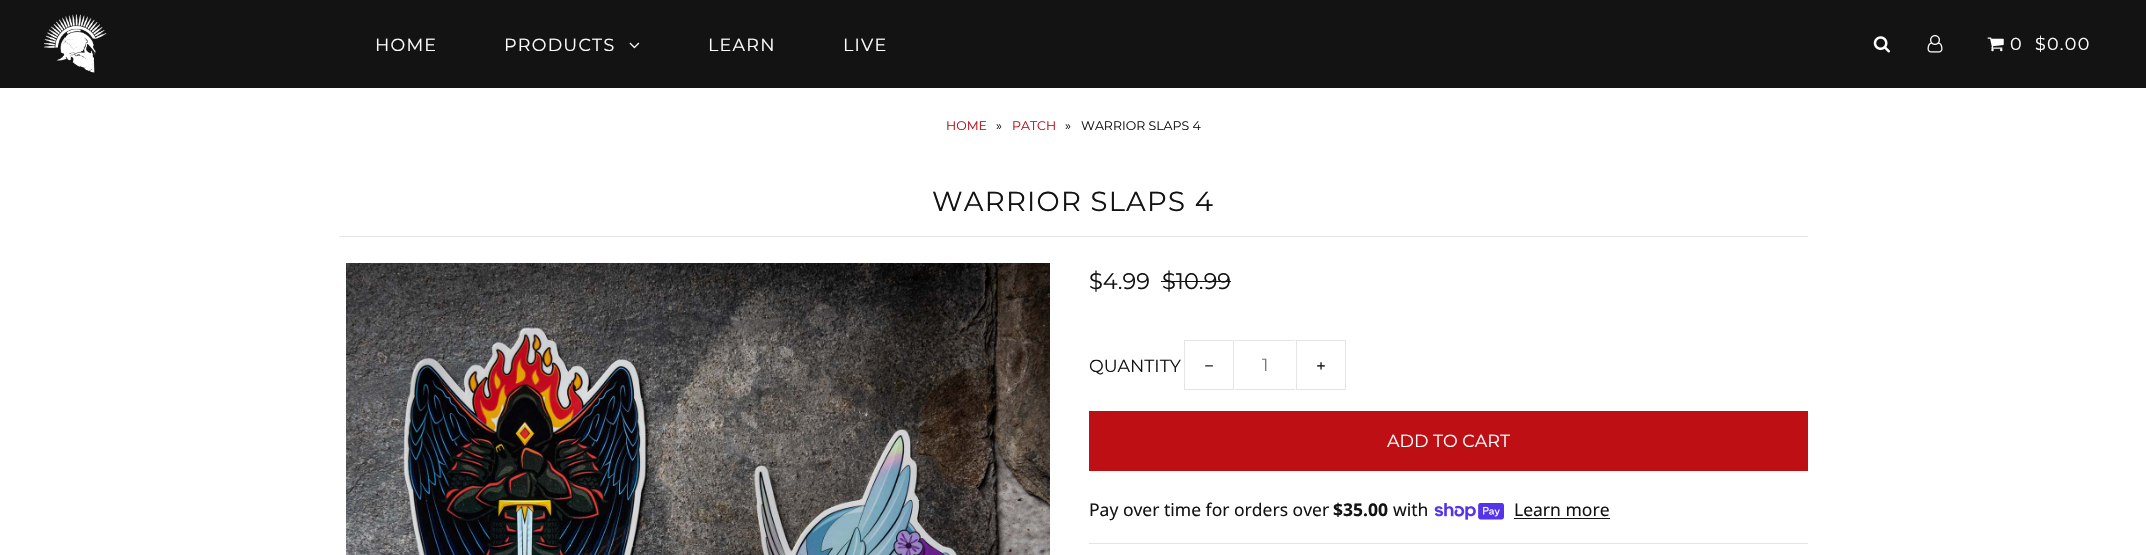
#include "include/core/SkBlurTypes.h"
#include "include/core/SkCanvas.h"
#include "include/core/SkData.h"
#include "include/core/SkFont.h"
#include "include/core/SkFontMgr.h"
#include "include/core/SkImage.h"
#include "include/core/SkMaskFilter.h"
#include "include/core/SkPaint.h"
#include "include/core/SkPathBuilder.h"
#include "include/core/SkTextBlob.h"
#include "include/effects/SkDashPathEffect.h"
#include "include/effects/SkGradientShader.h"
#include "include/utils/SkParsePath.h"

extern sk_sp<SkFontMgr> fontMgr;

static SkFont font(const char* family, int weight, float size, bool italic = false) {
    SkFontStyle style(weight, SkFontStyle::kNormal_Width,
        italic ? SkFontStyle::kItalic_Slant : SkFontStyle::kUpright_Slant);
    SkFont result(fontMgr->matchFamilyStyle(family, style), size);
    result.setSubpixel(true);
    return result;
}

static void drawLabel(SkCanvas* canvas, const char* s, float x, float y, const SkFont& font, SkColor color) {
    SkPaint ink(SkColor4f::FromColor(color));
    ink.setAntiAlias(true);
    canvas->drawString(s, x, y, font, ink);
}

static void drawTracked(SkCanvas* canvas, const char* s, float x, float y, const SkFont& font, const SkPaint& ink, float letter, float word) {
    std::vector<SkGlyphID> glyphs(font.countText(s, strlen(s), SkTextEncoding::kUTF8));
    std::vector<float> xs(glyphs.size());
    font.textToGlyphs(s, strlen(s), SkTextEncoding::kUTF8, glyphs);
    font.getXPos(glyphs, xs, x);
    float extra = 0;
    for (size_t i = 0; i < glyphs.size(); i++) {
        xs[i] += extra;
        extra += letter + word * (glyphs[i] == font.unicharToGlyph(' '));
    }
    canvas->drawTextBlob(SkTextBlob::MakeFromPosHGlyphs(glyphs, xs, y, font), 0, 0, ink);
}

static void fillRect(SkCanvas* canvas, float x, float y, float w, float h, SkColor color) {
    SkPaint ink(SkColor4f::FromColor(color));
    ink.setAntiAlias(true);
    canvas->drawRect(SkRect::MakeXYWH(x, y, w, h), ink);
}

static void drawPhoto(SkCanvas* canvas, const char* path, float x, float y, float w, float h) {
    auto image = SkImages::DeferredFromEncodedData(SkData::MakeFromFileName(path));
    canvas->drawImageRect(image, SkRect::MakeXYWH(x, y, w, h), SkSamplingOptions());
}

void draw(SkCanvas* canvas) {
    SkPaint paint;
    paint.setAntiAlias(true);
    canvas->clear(0xFFFFFFFF);
    fillRect(canvas, 0, 0, 2146, 88, 0xFF131313);
    drawPhoto(canvas, "assets/img1.png", 44, 14, 63, 59);
    SkFont font1 = font("Montserrat", 400, 17.5f);
    paint.setColor(0xFFFFFFFF);
    drawTracked(canvas, "HOME", 375, 51, font1, paint, 1.25f, 0);
    drawTracked(canvas, "PRODUCTS", 504, 51, font1, paint, 1.25f, 0);
    drawPhoto(canvas, "assets/img2.png", 629, 42, 11, 7);
    drawTracked(canvas, "LEARN", 708, 51, font1, paint, 1.25f, 0);
    drawTracked(canvas, "LIVE", 843, 51, font1, paint, 1.25f, 0);
    drawPhoto(canvas, "assets/img3.png", 1873, 36, 17, 17);
    drawPhoto(canvas, "assets/img4.png", 1927, 35, 16, 18);
    drawPhoto(canvas, "assets/img5.png", 1987, 37, 17, 15);
    drawTracked(canvas, "0", 2010, 50, font1, paint, 1.25f, 0);
    drawTracked(canvas, "$0.00", 2035, 50, font1, paint, 1.25f, 0);
    SkFont font2 = font("Montserrat", 400, 12.5f);
    drawLabel(canvas, "HOME", 946, 130, font2, 0xFFBE0F15);
    drawLabel(canvas, "»", 996, 130, font2, 0xFF131313);
    drawLabel(canvas, "PATCH", 1012, 130, font2, 0xFFBE0F15);
    drawLabel(canvas, "»", 1065, 130, font2, 0xFF131313);
    drawLabel(canvas, "WARRIOR SLAPS 4", 1081, 130, font2, 0xFF131313);
    fillRect(canvas, 339, 236, 1469, 1, 0xFFE5E5E5);
    SkFont font3 = font("Montserrat", 400, 27.5f);
    paint.setColor(0xFF131313);
    drawTracked(canvas, "WARRIOR SLAPS 4", 932, 211, font3, paint, 1.25f, 0);
    drawPhoto(canvas, "assets/img6.png", 346, 263, 704, 292);
    SkFont font4 = font("Montserrat", 400, 22.5f);
    drawLabel(canvas, "$4.99", 1089, 289, font4, 0xFF131313);
    drawLabel(canvas, "$10.99", 1162, 289, font4, 0xFF131313);
    fillRect(canvas, 1161, 281, 70, 1, 0xFF131313);
    fillRect(canvas, 1089, 543, 719, 1, 0xFFE5E5E5);
    drawLabel(canvas, "QUANTITY", 1089, 372, font1, 0xFF131313);
    paint.setStroke(true);
    paint.setStrokeWidth(1);
    paint.setColor(0xFFE5E5E5);
    canvas->drawRect(SkRect::MakeXYWH(1184.5f, 340.5f, 49, 49), paint);
    drawLabel(canvas, "−", 1204, 372, font1, 0xFF131313);
    fillRect(canvas, 1235, 340, 60, 1, 0xFFE5E5E5);
    fillRect(canvas, 1235, 389, 60, 1, 0xFFE5E5E5);
    drawLabel(canvas, "1", 1262, 371, font1, 0xFF777777);
    canvas->drawRect(SkRect::MakeXYWH(1296.5f, 340.5f, 49, 49), paint);
    drawLabel(canvas, "+", 1316, 372, font1, 0xFF131313);
    fillRect(canvas, 1089, 411, 719, 60, 0xFFBE0F15);
    drawLabel(canvas, "ADD TO CART", 1387, 447, font1, 0xFFFFFFFF);
    SkFont font5 = font("Noto Sans", 400, 17.5f);
    drawLabel(canvas, "Pay over time for orders over", 1089, 516, font5, 0xFF131313);
    SkFont font6 = font("Noto Sans", 700, 17.5f);
    drawLabel(canvas, "$35.00", 1333, 516, font6, 0xFF131313);
    drawLabel(canvas, "with", 1393, 516, font5, 0xFF131313);
    drawPhoto(canvas, "assets/img7.png", 1434, 503, 70, 17);
    drawLabel(canvas, "Learn more", 1514, 516, font5, 0xFF131313);
    fillRect(canvas, 1514, 518, 96, 1, 0xFF131313);
}
